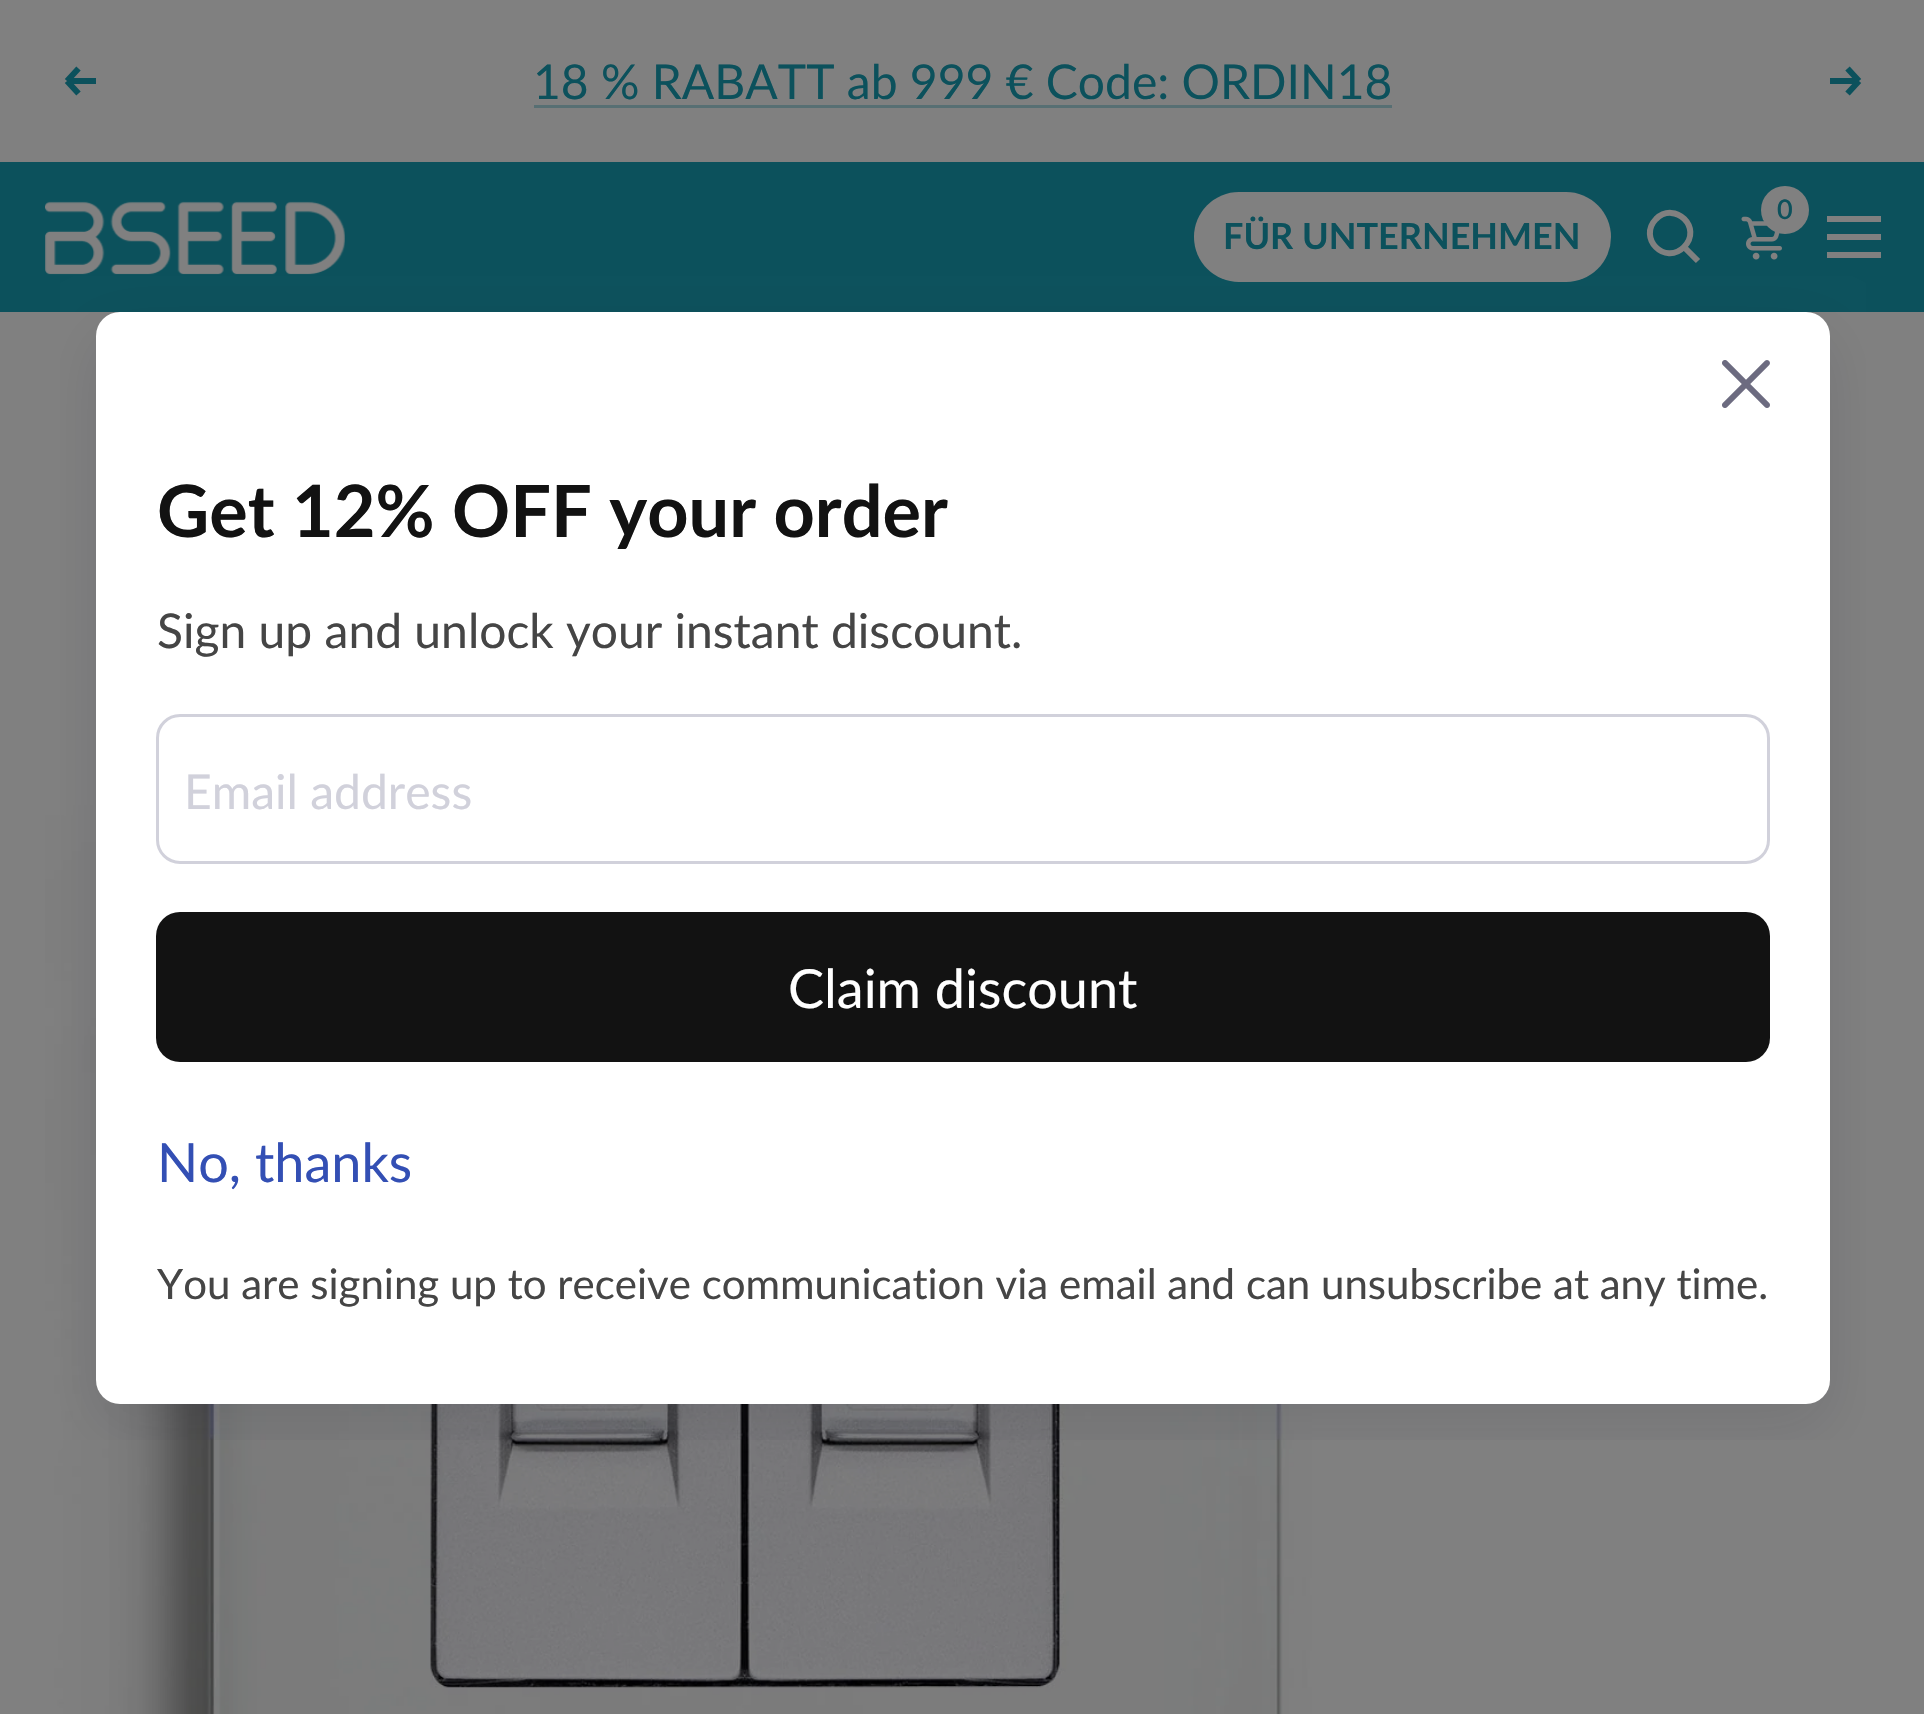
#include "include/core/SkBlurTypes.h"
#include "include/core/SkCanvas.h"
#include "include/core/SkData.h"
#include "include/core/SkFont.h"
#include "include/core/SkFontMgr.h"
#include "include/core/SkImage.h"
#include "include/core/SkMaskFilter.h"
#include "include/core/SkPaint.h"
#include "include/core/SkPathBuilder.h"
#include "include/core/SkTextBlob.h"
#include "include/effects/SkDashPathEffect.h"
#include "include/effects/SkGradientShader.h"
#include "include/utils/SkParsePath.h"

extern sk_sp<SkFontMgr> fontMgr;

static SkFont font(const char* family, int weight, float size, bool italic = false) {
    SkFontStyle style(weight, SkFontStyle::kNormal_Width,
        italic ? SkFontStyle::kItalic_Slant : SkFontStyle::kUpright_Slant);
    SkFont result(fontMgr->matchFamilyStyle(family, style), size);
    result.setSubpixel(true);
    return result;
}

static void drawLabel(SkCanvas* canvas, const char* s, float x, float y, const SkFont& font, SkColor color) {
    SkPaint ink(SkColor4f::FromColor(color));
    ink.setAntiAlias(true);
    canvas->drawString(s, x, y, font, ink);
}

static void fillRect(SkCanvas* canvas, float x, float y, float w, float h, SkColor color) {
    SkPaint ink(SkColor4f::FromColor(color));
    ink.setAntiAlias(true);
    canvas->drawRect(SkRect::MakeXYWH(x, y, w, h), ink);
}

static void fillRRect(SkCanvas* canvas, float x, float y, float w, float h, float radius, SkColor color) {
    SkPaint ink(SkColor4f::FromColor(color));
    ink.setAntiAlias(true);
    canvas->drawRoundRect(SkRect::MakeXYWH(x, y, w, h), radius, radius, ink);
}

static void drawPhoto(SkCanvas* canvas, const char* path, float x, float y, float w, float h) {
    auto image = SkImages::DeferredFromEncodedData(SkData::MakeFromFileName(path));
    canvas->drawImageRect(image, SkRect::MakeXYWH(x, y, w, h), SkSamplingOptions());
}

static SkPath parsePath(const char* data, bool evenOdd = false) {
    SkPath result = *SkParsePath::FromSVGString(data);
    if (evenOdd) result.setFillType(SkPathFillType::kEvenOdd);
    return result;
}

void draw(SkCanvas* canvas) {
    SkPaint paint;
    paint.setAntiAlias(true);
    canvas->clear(0xFF808080);
    paint.setStroke(true);
    paint.setStrokeWidth(6);
    paint.setColor(0xFF0C515C);
    canvas->drawPath(parsePath("M96 81H67M67 81L78.5 93.5M67 81L78.5 68.5"), paint);
    SkFont font1 = font("Lato", 400, 48);
    drawLabel(canvas, "18 % RABATT ab 999 € Code: ORDIN18", 533, 99, font1, 0xFF0C515C);
    fillRect(canvas, 534, 105, 858, 3, 0xFF576F73);
    canvas->drawPath(parsePath("M1830 81H1859M1859 81L1847.5 93.5M1859 81L1847.5 68.5"), paint);
    fillRect(canvas, 0, 162, 1924, 150, 0xFF0C515C);
    drawPhoto(canvas, "assets/img1.png", 45, 201, 300, 74);
    fillRRect(canvas, 1194, 192, 417, 90, 45, 0xFF808080);
    SkFont font2 = font("Lato", 700, 36);
    drawLabel(canvas, "FÜR UNTERNEHMEN", 1223, 249, font2, 0xFF0C515C);
    paint.setColor(0xFF808080);
    canvas->drawPath(parsePath("M1684 247C1703 228 1675 200.5 1656 219C1637.5 238 1665 266 1684 247ZM1684 247L1698 261"), paint);
    drawPhoto(canvas, "assets/img2.png", 1741, 216, 41, 44);
    paint.setStroke(false);
    canvas->drawCircle(1785, 210, 24, paint);
    SkFont font3 = font("Lato", 600, 27);
    drawLabel(canvas, "0", 1777, 219, font3, 0xFF0C515C);
    paint.setStroke(true);
    canvas->drawPath(parsePath("M1827 219H1881M1827 255H1881ZM1827 237H1881Z"), paint);
    drawPhoto(canvas, "assets/img3.png", 45, 402, 1836, 1312);
    canvas->save();
    canvas->clipRect(SkRect::MakeXYWH(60, 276, 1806, 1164));
    paint.setStroke(false);
    paint.setColor(0x1A121127);
    paint.setMaskFilter(SkMaskFilter::MakeBlur(kNormal_SkBlurStyle, 30));
    canvas->drawRoundRect(SkRect::MakeXYWH(96, 336, 1734, 1092), 24, 24, paint);
    paint.setMaskFilter(nullptr);
    canvas->restore();
    fillRRect(canvas, 96, 312, 1734, 1092, 24, 0xFFFFFFFF);
    drawPhoto(canvas, "assets/img4.png", 1722, 360, 48, 48);
    SkFont font4 = font("Lato", 700, 72);
    drawLabel(canvas, "Get 12% OFF your order", 157, 537, font4, 0xFF121212);
    drawLabel(canvas, "Sign up and unlock your instant discount.", 157, 648, font1, 0xFF454545);
    paint.setStroke(true);
    paint.setStrokeWidth(3);
    paint.setColor(0xFFD1D1DB);
    canvas->drawRoundRect(SkRect::MakeXYWH(157.5f, 715.5f, 1611, 147), 22.5f, 22.5f, paint);
    drawLabel(canvas, "Email address", 184, 809, font1, 0xFFD1D1DB);
    fillRRect(canvas, 156, 912, 1614, 150, 24, 0xFF121212);
    SkFont font5 = font("Lato", 400, 54);
    drawLabel(canvas, "Claim discount", 788, 1008, font5, 0xFFFFFFFF);
    drawLabel(canvas, "No, thanks", 157, 1182, font5, 0xFF334FB4);
    SkFont font6 = font("Lato", 400, 42);
    drawLabel(canvas, "You are signing up to receive communication via email and can unsubscribe at any time.", 157, 1299, font6, 0xFF454545);
}
